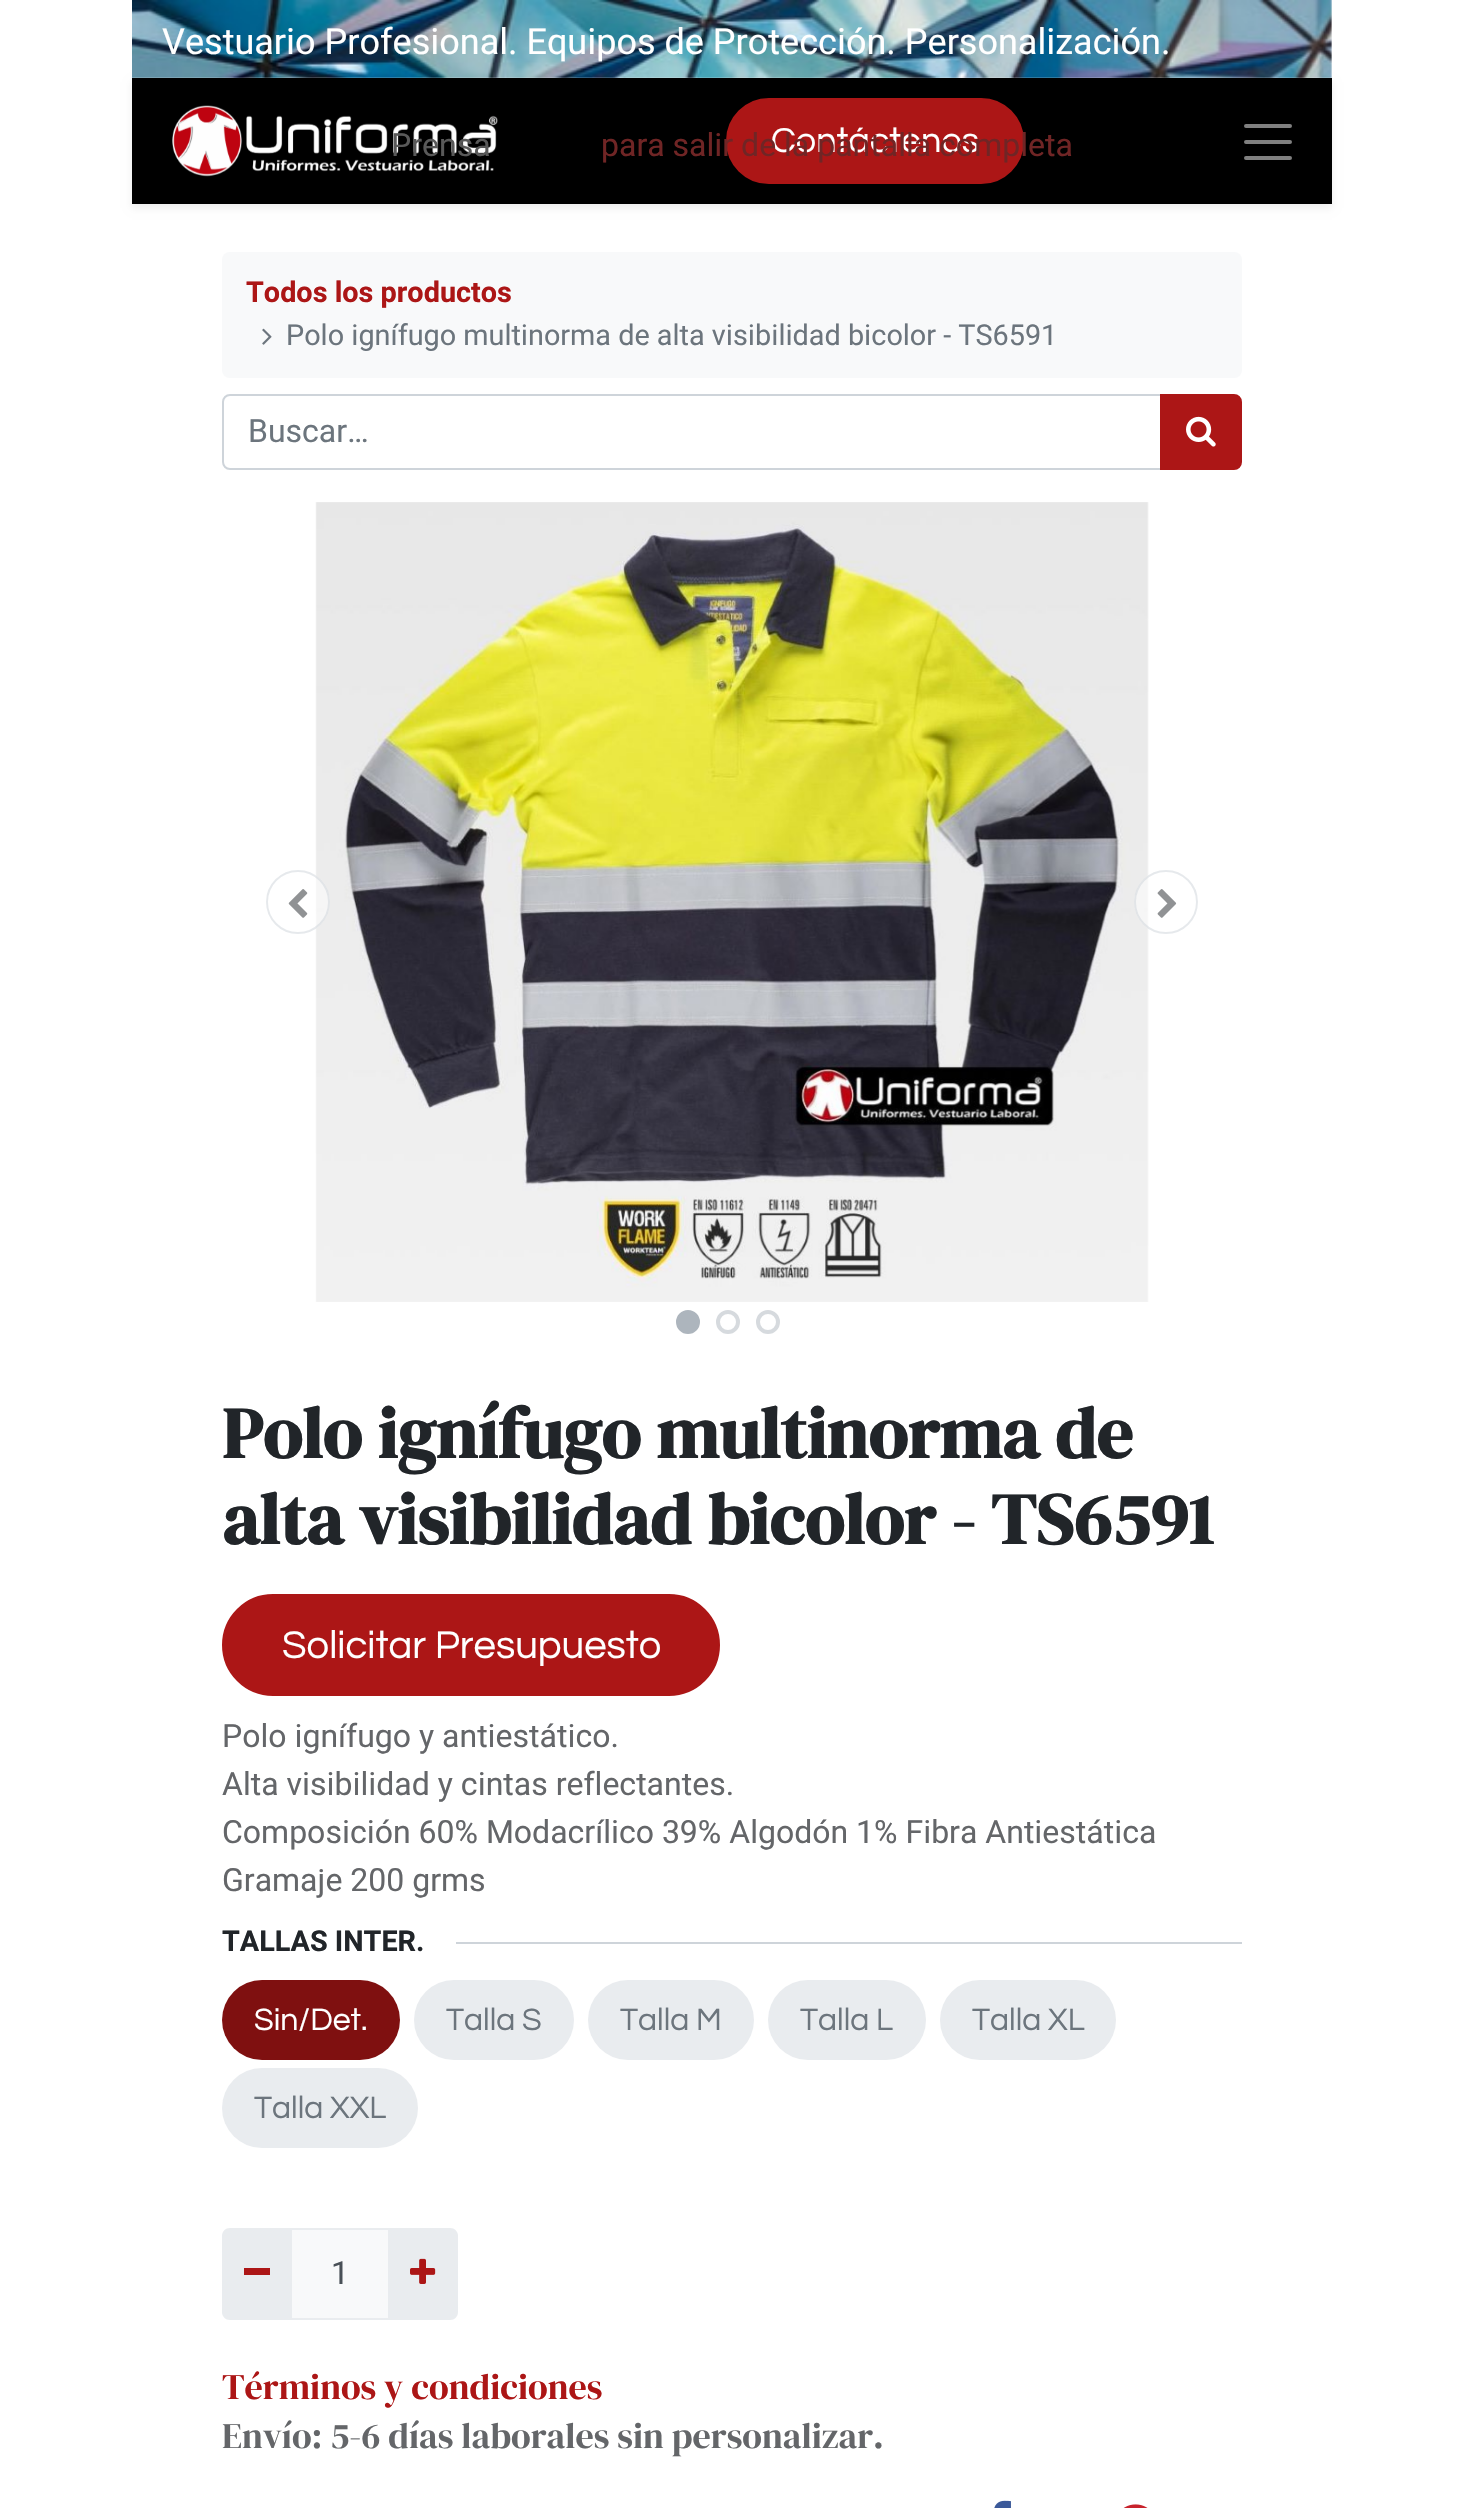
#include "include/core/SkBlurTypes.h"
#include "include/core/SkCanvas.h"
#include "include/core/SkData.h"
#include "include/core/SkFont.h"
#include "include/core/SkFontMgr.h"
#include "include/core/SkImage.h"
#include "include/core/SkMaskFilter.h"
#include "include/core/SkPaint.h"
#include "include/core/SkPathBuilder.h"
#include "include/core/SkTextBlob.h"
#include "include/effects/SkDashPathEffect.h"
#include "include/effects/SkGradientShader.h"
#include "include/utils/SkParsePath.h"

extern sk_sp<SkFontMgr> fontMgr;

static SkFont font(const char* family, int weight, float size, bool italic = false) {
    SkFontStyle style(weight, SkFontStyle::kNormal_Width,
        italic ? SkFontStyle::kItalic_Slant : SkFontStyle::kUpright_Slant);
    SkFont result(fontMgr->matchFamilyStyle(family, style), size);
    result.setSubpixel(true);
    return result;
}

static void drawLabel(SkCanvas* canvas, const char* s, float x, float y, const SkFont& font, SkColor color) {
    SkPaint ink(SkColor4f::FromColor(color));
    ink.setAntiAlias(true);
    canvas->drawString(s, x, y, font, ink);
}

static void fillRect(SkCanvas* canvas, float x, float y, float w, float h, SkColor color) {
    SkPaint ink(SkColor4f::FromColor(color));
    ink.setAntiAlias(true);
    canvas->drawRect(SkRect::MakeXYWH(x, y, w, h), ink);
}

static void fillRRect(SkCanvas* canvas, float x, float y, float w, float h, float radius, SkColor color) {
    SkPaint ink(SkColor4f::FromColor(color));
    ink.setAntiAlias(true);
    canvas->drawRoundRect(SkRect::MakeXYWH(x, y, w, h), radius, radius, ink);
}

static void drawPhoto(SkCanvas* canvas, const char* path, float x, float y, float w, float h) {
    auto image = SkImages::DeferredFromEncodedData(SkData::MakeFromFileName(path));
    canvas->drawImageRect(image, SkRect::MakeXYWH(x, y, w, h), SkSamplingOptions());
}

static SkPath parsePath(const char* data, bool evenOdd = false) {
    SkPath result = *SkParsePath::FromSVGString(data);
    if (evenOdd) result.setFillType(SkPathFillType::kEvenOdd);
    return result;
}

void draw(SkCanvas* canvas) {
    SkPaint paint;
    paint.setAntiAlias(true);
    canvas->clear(0xFFFFFFFF);
    drawPhoto(canvas, "assets/img1.png", 132, 0, 1200, 78);
    SkFont font1 = font("Heebo", 400, 36);
    drawLabel(canvas, "Vestuario Profesional. Equipos de Protección. Personalización.", 162, 54, font1, 0xFFFFFFFF);
    paint.setColor(0x12000000);
    paint.setMaskFilter(SkMaskFilter::MakeBlur(kNormal_SkBlurStyle, 4));
    canvas->drawRect(SkRect::MakeXYWH(132, 82, 1200, 126), paint);
    paint.setMaskFilter(nullptr);
    fillRect(canvas, 132, 78, 1200, 126, 0xFF000000);
    drawPhoto(canvas, "assets/img2.png", 172, 105, 326, 72);
    paint.setColor(0xFFAC1616);
    canvas->drawRoundRect(SkRect::MakeXYWH(727, 99, 296, 84), 42, 42, paint);
    paint.setStroke(true);
    paint.setStrokeWidth(2);
    canvas->drawRoundRect(SkRect::MakeXYWH(727, 99, 296, 84), 42, 42, paint);
    SkFont font2 = font("Questrial", 400, 36);
    drawLabel(canvas, "Contáctenos", 771, 152, font2, 0xFFFFFFFF);
    paint.setStrokeWidth(4);
    paint.setStrokeCap(SkPaint::kRound_Cap);
    paint.setColor(0xFF808080);
    canvas->drawPath(parsePath("M1246 126H1290M1246 142H1290M1246 158H1290"), paint);
    fillRRect(canvas, 222, 252, 1020, 126, 8, 0xFFF8F9FA);
    SkFont font3 = font("Heebo", 700, 28.8f);
    drawLabel(canvas, "Todos los productos", 246, 302, font3, 0xFFAC1616);
    drawPhoto(canvas, "assets/img3.png", 262, 328, 10, 17);
    SkFont font4 = font("Heebo", 400, 28.8f);
    drawLabel(canvas, "Polo ignífugo multinorma de alta visibilidad bicolor - TS6591", 286, 345, font4, 0xFF6C757D);
    paint.setStrokeWidth(2);
    paint.setStrokeCap(SkPaint::kButt_Cap);
    paint.setColor(0xFFCED4DA);
    canvas->drawPath(parsePath("M230 395H1161V469H230C226 469 223 466 223 462V402C223 398 226 395 230 395Z"), paint);
    SkFont font5 = font("Heebo", 400, 32);
    drawLabel(canvas, "Buscar…", 248, 442, font5, 0xFF6C757D);
    paint.setStroke(false);
    paint.setColor(0xFFAC1616);
    canvas->drawPath(parsePath("M1161 395H1234C1238 395 1241 398 1241 402V462C1241 466 1238 469 1234 469H1161Z"), paint);
    paint.setStroke(true);
    canvas->drawPath(parsePath("M1161 395H1234C1238 395 1241 398 1241 402V462C1241 466 1238 469 1234 469H1161Z"), paint);
    drawPhoto(canvas, "assets/img4.png", 1186, 416, 30, 31);
    drawPhoto(canvas, "assets/img6.png", 315, 502, 834, 800);
    paint.setStroke(false);
    paint.setColor(0x80FFFFFF);
    canvas->drawCircle(298, 902, 32, paint);
    paint.setStroke(true);
    paint.setColor(0x80CED4DA);
    canvas->drawCircle(298, 902, 31, paint);
    drawPhoto(canvas, "assets/img5.png", 288, 889, 20, 29);
    paint.setStroke(false);
    paint.setColor(0x80FFFFFF);
    canvas->drawCircle(1166, 902, 32, paint);
    paint.setStroke(true);
    paint.setColor(0x80CED4DA);
    canvas->drawCircle(1166, 902, 31, paint);
    drawPhoto(canvas, "assets/img7.png", 1157, 889, 20, 29);
    paint.setStroke(false);
    paint.setColor(0xFFADB5BD);
    canvas->drawCircle(688, 1322, 10, paint);
    paint.setStroke(true);
    paint.setStrokeWidth(4);
    canvas->drawCircle(688, 1322, 10, paint);
    paint.setColor(0xFFD6DADE);
    canvas->drawCircle(728, 1322, 10, paint);
    canvas->drawCircle(768, 1322, 10, paint);
    SkFont font6 = font("DM Serif Display", 700, 72);
    drawLabel(canvas, "Polo ignífugo multinorma de", 222, 1458, font6, 0xFF212529);
    drawLabel(canvas, "alta visibilidad bicolor - TS6591", 222, 1544, font6, 0xFF212529);
    paint.setStroke(false);
    paint.setColor(0xFFAC1616);
    canvas->drawRoundRect(SkRect::MakeXYWH(223, 1595, 496, 100), 50, 50, paint);
    paint.setStroke(true);
    paint.setStrokeWidth(2);
    canvas->drawRoundRect(SkRect::MakeXYWH(223, 1595, 496, 100), 50, 50, paint);
    SkFont font7 = font("Questrial", 400, 40);
    drawLabel(canvas, "Solicitar Presupuesto", 282, 1658, font7, 0xFFFFFFFF);
    drawLabel(canvas, "Polo ignífugo y antiestático.", 222, 1747, font5, 0xFF646669);
    drawLabel(canvas, "Alta visibilidad y cintas reflectantes.", 222, 1795, font5, 0xFF646669);
    drawLabel(canvas, "Composición 60% Modacrílico 39% Algodón 1% Fibra Antiestática", 222, 1843, font5, 0xFF646669);
    drawLabel(canvas, "Gramaje 200 grms", 222, 1891, font5, 0xFF646669);
    drawLabel(canvas, "TALLAS INTER.", 222, 1951, font3, 0xFF212529);
    fillRect(canvas, 456, 1942, 786, 2, 0xFFCED4DA);
    fillRRect(canvas, 222, 1980, 178, 80, 40, 0xFF7F1010);
    SkFont font8 = font("Questrial", 400, 32);
    drawLabel(canvas, "Sin/Det.", 254, 2030, font8, 0xFFFFFFFF);
    fillRRect(canvas, 414, 1980, 160, 80, 40, 0xFFE9ECEF);
    drawLabel(canvas, "Talla S", 446, 2030, font8, 0xFF6C757D);
    fillRRect(canvas, 588, 1980, 166, 80, 40, 0xFFE9ECEF);
    drawLabel(canvas, "Talla M", 620, 2030, font8, 0xFF6C757D);
    fillRRect(canvas, 768, 1980, 158, 80, 40, 0xFFE9ECEF);
    drawLabel(canvas, "Talla L", 800, 2030, font8, 0xFF6C757D);
    fillRRect(canvas, 940, 1980, 176, 80, 40, 0xFFE9ECEF);
    drawLabel(canvas, "Talla XL", 972, 2030, font8, 0xFF6C757D);
    fillRRect(canvas, 222, 2068, 196, 80, 40, 0xFFE9ECEF);
    drawLabel(canvas, "Talla XXL", 254, 2118, font8, 0xFF6C757D);
    paint.setStroke(false);
    paint.setColor(0xFFF8F9FA);
    canvas->drawRect(SkRect::MakeXYWH(291, 2229, 98, 90), paint);
    paint.setStroke(true);
    paint.setColor(0xFFE9ECEF);
    canvas->drawRect(SkRect::MakeXYWH(291, 2229, 98, 90), paint);
    paint.setStroke(false);
    canvas->drawPath(parsePath("M230 2228H292V2320H230C225.5 2320 222 2316.5 222 2312V2236C222 2231.5 225.5 2228 230 2228Z"), paint);
    fillRect(canvas, 244, 2268, 26, 7, 0xFFAC1616);
    drawLabel(canvas, "1", 331, 2284, font5, 0xFF495057);
    canvas->drawPath(parsePath("M388 2228H450C454.5 2228 458 2231.5 458 2236V2312C458 2316.5 454.5 2320 450 2320H388Z"), paint);
    drawPhoto(canvas, "assets/img8.png", 410, 2258, 26, 26);
    SkFont font9 = font("DM Serif Display", 400, 36);
    drawLabel(canvas, "Términos y condiciones", 222, 2399, font9, 0xFFAC1616);
    drawLabel(canvas, "Envío: 5-6 días laborales sin personalizar.", 222, 2448, font9, 0xFF646669);
    drawPhoto(canvas, "assets/img9.png", 994, 2500, 17, 8);
    drawPhoto(canvas, "assets/img10.png", 1123, 2504, 25, 4);
    drawLabel(canvas, "Prensa", 391, 156, font5, 0xFF595959);
    drawLabel(canvas, "para salir de la pantalla completa", 601, 156, font5, 0xFF702525);
}
